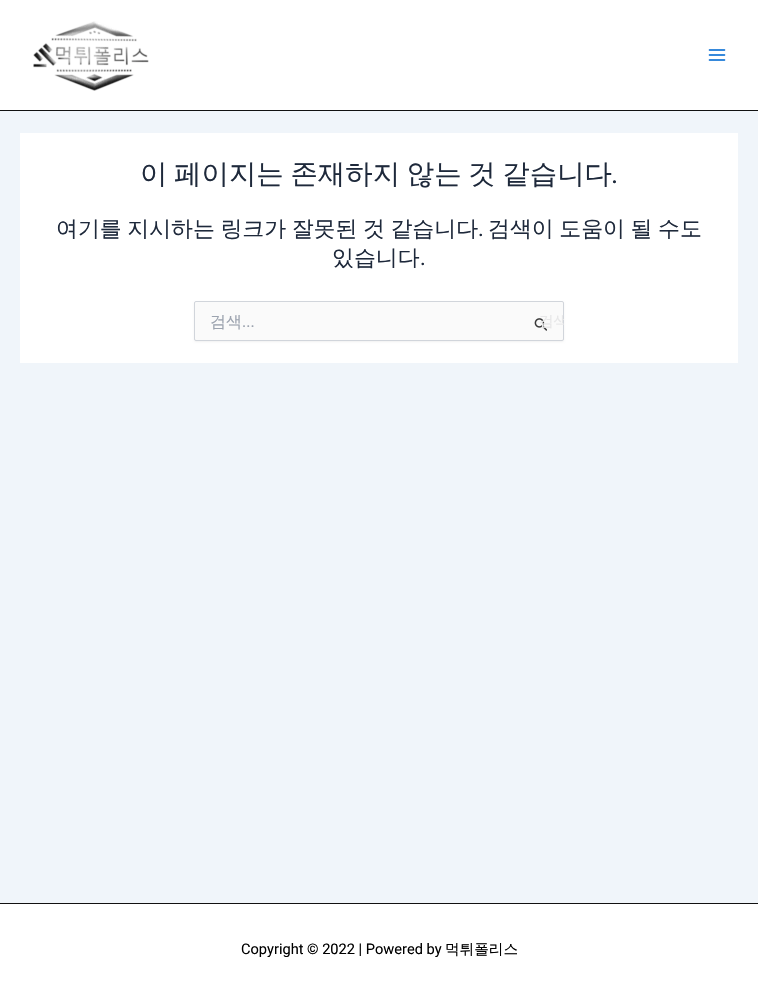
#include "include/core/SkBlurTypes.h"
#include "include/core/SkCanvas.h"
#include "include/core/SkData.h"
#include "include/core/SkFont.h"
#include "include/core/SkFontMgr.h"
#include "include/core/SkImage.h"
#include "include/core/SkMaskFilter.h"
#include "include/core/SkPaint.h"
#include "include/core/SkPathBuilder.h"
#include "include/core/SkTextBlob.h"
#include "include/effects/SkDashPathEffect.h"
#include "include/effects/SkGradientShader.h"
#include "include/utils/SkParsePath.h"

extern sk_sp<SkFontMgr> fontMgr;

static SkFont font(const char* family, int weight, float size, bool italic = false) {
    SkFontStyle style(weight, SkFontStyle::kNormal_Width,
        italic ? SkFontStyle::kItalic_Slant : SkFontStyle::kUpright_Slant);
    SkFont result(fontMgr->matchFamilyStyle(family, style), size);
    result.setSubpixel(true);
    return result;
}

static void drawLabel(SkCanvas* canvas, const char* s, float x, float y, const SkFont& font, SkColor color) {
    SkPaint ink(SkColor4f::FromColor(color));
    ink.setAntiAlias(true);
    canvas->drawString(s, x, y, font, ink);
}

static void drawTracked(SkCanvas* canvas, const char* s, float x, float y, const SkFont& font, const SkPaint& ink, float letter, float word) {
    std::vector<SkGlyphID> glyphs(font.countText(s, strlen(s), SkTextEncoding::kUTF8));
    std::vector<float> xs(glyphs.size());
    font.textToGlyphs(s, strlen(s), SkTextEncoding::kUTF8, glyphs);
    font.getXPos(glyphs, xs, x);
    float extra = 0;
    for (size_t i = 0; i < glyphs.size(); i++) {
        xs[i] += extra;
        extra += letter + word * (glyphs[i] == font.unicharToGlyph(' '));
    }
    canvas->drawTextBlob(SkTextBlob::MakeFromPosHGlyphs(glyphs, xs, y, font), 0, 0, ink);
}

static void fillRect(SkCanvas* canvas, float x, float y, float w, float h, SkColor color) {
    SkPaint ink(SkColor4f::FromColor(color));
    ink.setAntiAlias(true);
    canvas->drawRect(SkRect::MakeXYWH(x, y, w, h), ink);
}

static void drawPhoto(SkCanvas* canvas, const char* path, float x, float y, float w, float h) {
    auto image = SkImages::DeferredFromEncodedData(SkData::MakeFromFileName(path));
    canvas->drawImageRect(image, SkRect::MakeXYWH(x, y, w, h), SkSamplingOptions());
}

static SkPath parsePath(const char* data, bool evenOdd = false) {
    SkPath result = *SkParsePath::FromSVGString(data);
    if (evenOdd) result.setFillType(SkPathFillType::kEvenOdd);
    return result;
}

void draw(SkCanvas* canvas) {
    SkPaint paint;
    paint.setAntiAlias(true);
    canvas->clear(0xFFF0F5FA);
    fillRect(canvas, 0, 0, 758, 110, 0xFFFFFFFF);
    fillRect(canvas, 0, 110, 758, 1, 0xFF111111);
    drawPhoto(canvas, "assets/img1.png", 33, 21, 116, 70);
    drawPhoto(canvas, "assets/img2.png", 708, 49, 18, 12);
    fillRect(canvas, 20, 133, 718, 230, 0xFFFFFFFF);
    SkFont font1 = font("WenQuanYi Zen Hei", 500, 27.4f);
    paint.setColor(0xFF1E293B);
    drawTracked(canvas, "이 페이지는 존재하지 않는 것 같습니다", 140, 183, font1, paint, 0, -1.5f);
    SkFont font2 = font("Roboto", 400, 27.4f);
    drawLabel(canvas, ".", 611, 183, font2, 0xFF1E293B);
    SkFont font3 = font("WenQuanYi Zen Hei", 500, 21.9f);
    drawTracked(canvas, "여기를 지시하는 링크가 잘못된 것 같습니다", 56, 236, font3, paint, 0, -1);
    SkFont font4 = font("Roboto", 400, 21.9f);
    drawLabel(canvas, ".", 478, 236, font4, 0xFF1E293B);
    drawTracked(canvas, "검색이 도움이 될 수도", 488, 236, font3, paint, 0, -1);
    drawLabel(canvas, "있습니다", 332, 265, font3, 0xFF1E293B);
    drawLabel(canvas, ".", 420, 265, font4, 0xFF1E293B);
    paint.setColor(0x0D000000);
    paint.setMaskFilter(SkMaskFilter::MakeBlur(kNormal_SkBlurStyle, 1));
    canvas->drawRoundRect(SkRect::MakeXYWH(194, 302, 370, 40), 2, 2, paint);
    paint.setMaskFilter(nullptr);
    paint.setColor(0xFFFAFAFA);
    canvas->drawRoundRect(SkRect::MakeXYWH(194.5f, 301.5f, 369, 39), 1.5f, 1.5f, paint);
    paint.setStroke(true);
    paint.setStrokeWidth(1);
    paint.setColor(0xFFD1D5DB);
    canvas->drawRoundRect(SkRect::MakeXYWH(194.5f, 301.5f, 369, 39), 1.5f, 1.5f, paint);
    SkFont font5 = font("WenQuanYi Zen Hei", 500, 16);
    drawLabel(canvas, "검색", 210, 327, font5, 0xFF9CA3AF);
    SkFont font6 = font("Roboto", 400, 16);
    drawLabel(canvas, "...", 242, 327, font6, 0xFF9CA3AF);
    drawPhoto(canvas, "assets/img3.png", 534, 318, 13, 13);
    canvas->save();
    canvas->clipPath(parsePath("M521 301H562C563 301 564 302 564 303V340C564 341 563 342 562 342H521C520 342 519 341 519 340V303C519 302 520 301 521 301Z"), true);
    SkFont font7 = font("WenQuanYi Zen Hei", 500, 14.6f);
    drawLabel(canvas, "검색", 539, 326, font7, 0xFFE7E7E8);
    canvas->restore();
    fillRect(canvas, 0, 904, 758, 100, 0xFFFFFFFF);
    fillRect(canvas, 0, 903, 758, 1, 0xFF111111);
    SkFont font8 = font("Roboto", 400, 14.6f);
    drawLabel(canvas, "Copyright © 2022 | Powered by", 241, 954, font8, 0xFF000000);
    drawLabel(canvas, "먹튀폴리스", 445, 954, font7, 0xFF000000);
}
